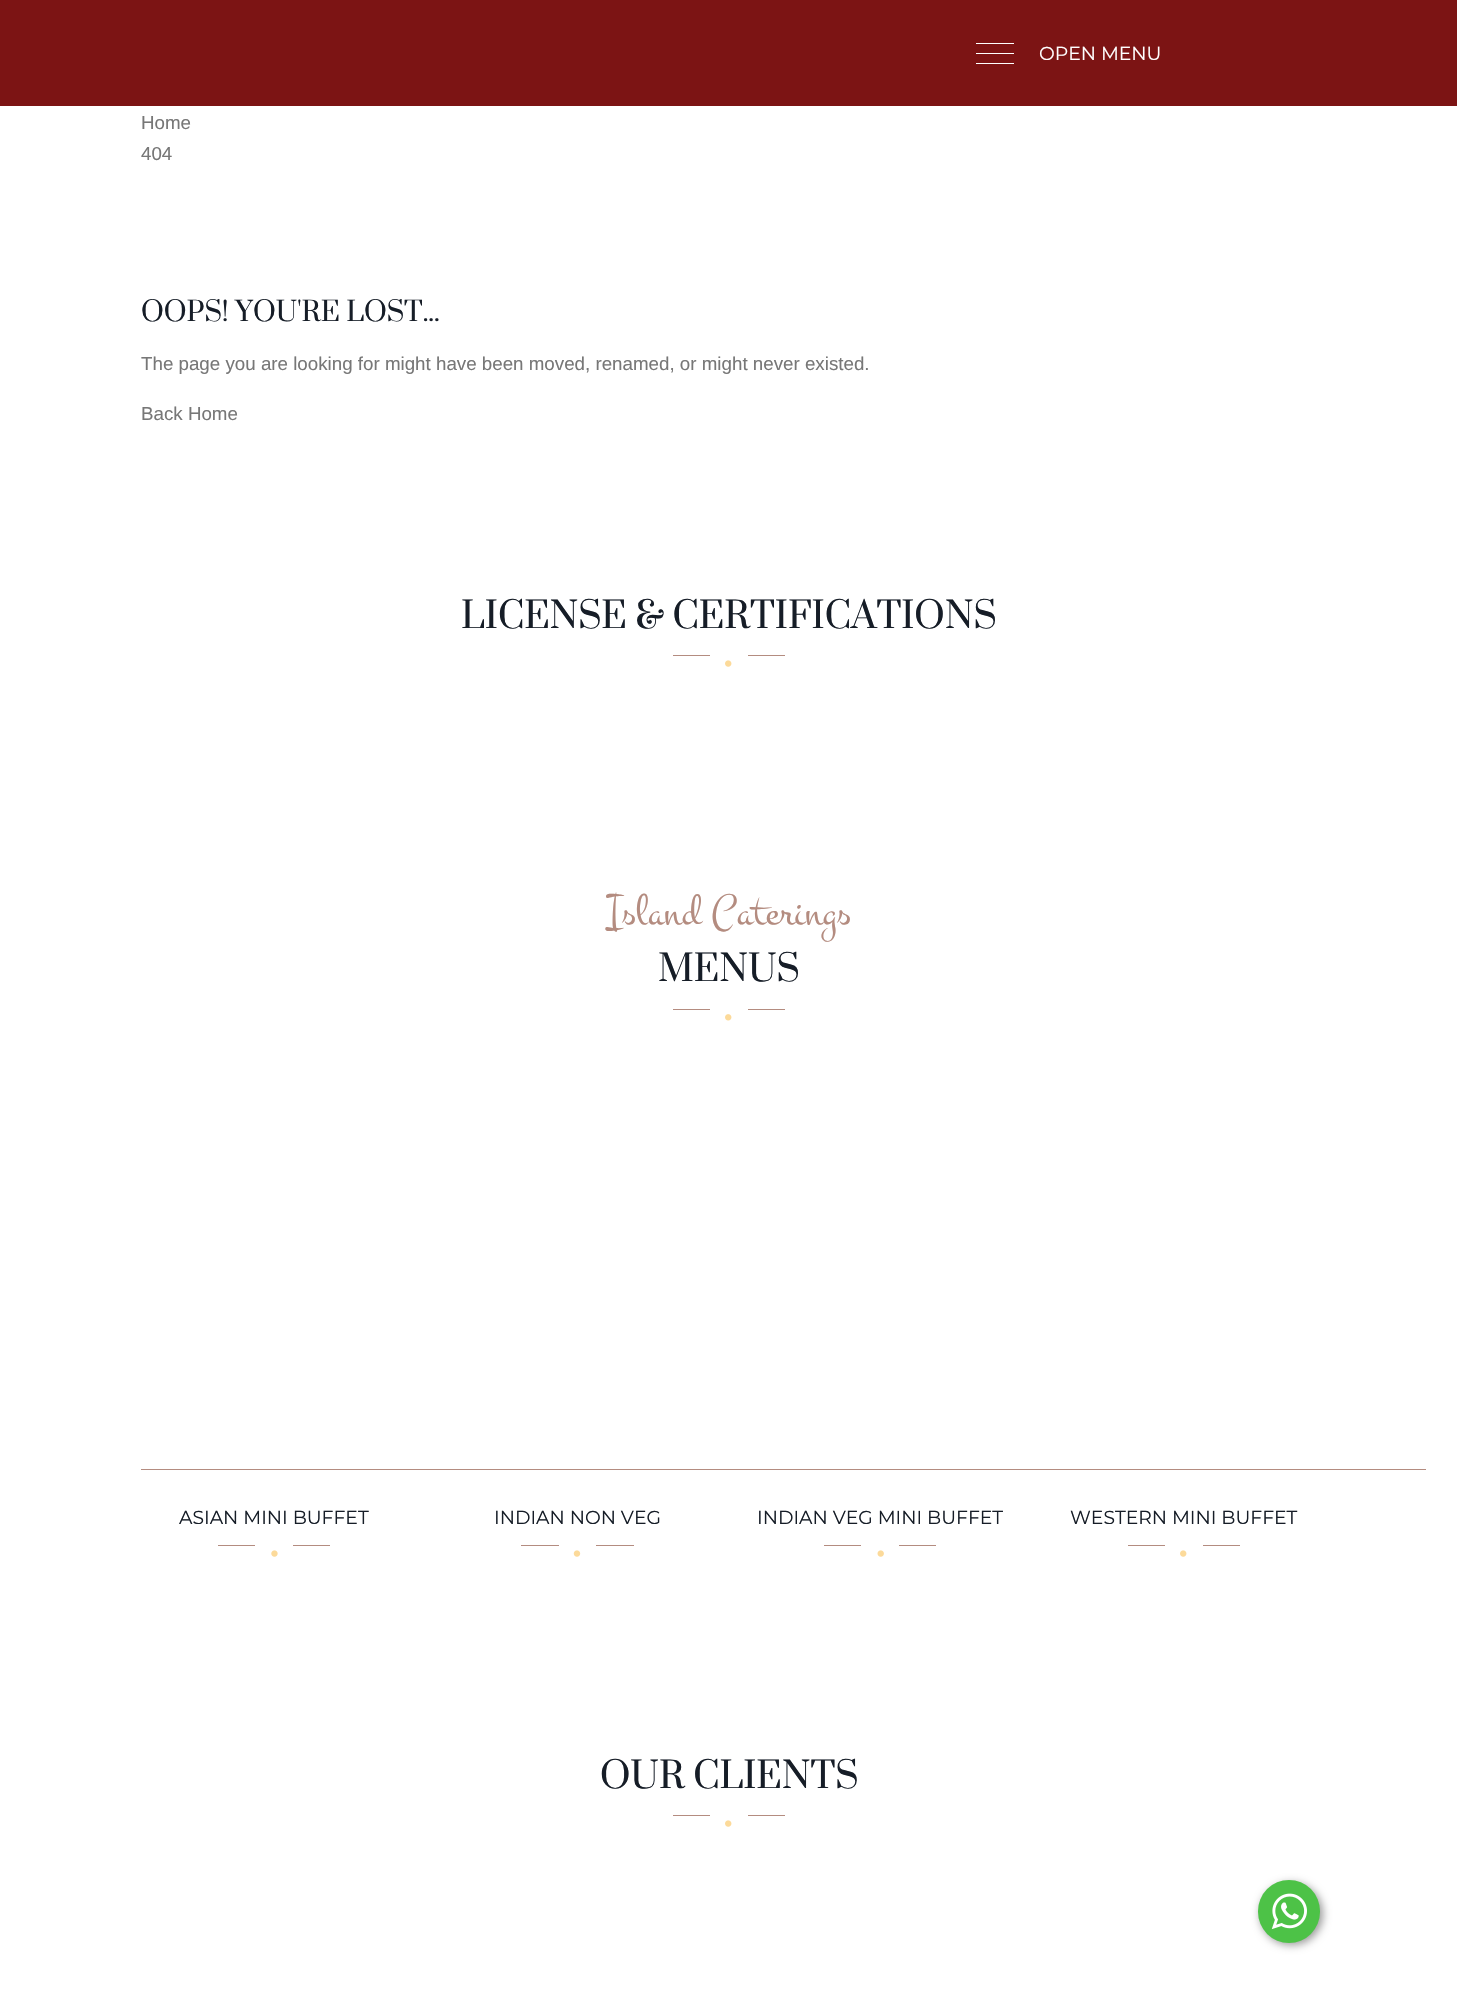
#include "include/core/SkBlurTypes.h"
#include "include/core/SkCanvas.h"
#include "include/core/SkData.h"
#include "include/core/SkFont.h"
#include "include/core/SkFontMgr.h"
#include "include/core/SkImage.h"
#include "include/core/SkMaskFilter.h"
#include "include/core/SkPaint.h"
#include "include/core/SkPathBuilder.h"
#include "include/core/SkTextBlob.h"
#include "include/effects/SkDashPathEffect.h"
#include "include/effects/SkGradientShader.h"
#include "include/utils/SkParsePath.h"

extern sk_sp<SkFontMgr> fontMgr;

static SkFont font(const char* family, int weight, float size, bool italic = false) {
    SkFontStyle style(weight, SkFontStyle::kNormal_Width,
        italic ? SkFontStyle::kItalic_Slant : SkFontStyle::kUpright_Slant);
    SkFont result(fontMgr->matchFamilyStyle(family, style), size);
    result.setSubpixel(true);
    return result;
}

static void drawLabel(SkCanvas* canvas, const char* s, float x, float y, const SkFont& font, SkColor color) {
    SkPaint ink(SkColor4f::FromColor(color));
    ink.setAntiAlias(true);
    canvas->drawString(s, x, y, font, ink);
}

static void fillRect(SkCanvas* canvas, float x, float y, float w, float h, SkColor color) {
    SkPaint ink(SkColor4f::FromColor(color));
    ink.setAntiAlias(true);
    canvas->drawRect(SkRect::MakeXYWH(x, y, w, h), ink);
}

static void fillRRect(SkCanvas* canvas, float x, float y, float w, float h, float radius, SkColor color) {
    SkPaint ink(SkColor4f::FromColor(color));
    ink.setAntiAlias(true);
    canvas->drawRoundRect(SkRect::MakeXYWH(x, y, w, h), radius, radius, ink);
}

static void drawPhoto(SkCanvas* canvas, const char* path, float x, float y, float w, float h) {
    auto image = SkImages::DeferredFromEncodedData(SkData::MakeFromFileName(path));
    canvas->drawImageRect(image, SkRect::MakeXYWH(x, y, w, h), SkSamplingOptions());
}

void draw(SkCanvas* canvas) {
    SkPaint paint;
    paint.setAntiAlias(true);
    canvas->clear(0xFFFFFFFF);
    fillRect(canvas, 0, 0, 1457, 106, 0xFF7C1414);
    fillRect(canvas, 976, 63, 38, 1, 0xFFFFFFFF);
    fillRect(canvas, 976, 53, 38, 1, 0xFFFFFFFF);
    fillRect(canvas, 976, 43, 38, 1, 0xFFFFFFFF);
    SkFont font1 = font("Montserrat", 400, 18.75f);
    drawLabel(canvas, "OPEN MENU", 1039, 60, font1, 0xFFFFFFFF);
    SkFont font2 = font("Liberation Sans", 400, 18.75f);
    drawLabel(canvas, "Home", 141, 129, font2, 0xFF777777);
    drawLabel(canvas, "404", 141, 160, font2, 0xFF777777);
    SkFont font3 = font("Suranna", 400, 33.75f);
    drawLabel(canvas, "OOPS! YOU'RE LOST...", 141, 321, font3, 0xFF161D27);
    drawLabel(canvas, "The page you are looking for might have been moved, renamed, or might never existed.", 141, 370, font2, 0xFF777777);
    drawLabel(canvas, "Back Home", 141, 420, font2, 0xFF777777);
    SkFont font4 = font("Suranna", 400, 45);
    drawLabel(canvas, "LICENSE & CERTIFICATIONS", 461, 628, font4, 0xFF161D27);
    fillRect(canvas, 673, 655, 37, 1, 0xFFB48C80);
    fillRect(canvas, 748, 655, 37, 1, 0xFFB48C80);
    drawPhoto(canvas, "assets/img1.png", 725, 660, 7, 7);
    SkFont font5 = font("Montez", 400, 45);
    drawLabel(canvas, "Island Caterings", 607, 924, font5, 0xFFB48C80);
    drawLabel(canvas, "MENUS", 658, 981, font4, 0xFF161D27);
    fillRect(canvas, 673, 1009, 37, 1, 0xFFB48C80);
    fillRect(canvas, 748, 1009, 37, 1, 0xFFB48C80);
    drawPhoto(canvas, "assets/img2.png", 725, 1014, 7, 7);
    fillRect(canvas, 141, 1469, 1285, 1, 0xFFB48C80);
    drawLabel(canvas, "ASIAN MINI BUFFET", 179, 1524, font1, 0xFF161D27);
    fillRect(canvas, 218, 1545, 37, 1, 0xFFB48C80);
    fillRect(canvas, 293, 1545, 37, 1, 0xFFB48C80);
    drawPhoto(canvas, "assets/img3.png", 271, 1550, 7, 7);
    drawLabel(canvas, "INDIAN NON VEG", 494, 1524, font1, 0xFF161D27);
    fillRect(canvas, 521, 1545, 38, 1, 0xFFB48C80);
    fillRect(canvas, 596, 1545, 38, 1, 0xFFB48C80);
    drawPhoto(canvas, "assets/img4.png", 573, 1550, 8, 7);
    drawLabel(canvas, "INDIAN VEG MINI BUFFET", 757, 1524, font1, 0xFF161D27);
    fillRect(canvas, 824, 1545, 37, 1, 0xFFB48C80);
    fillRect(canvas, 899, 1545, 37, 1, 0xFFB48C80);
    drawPhoto(canvas, "assets/img5.png", 877, 1550, 7, 7);
    drawLabel(canvas, "WESTERN MINI BUFFET", 1070, 1524, font1, 0xFF161D27);
    fillRect(canvas, 1128, 1545, 37, 1, 0xFFB48C80);
    fillRect(canvas, 1203, 1545, 37, 1, 0xFFB48C80);
    drawPhoto(canvas, "assets/img1.png", 1180, 1550, 7, 7);
    drawLabel(canvas, "OUR CLIENTS", 600, 1788, font4, 0xFF161D27);
    fillRect(canvas, 673, 1815, 37, 1, 0xFFB48C80);
    fillRect(canvas, 748, 1815, 37, 1, 0xFFB48C80);
    drawPhoto(canvas, "assets/img1.png", 725, 1820, 7, 7);
    paint.setColor(0x66000000);
    paint.setMaskFilter(SkMaskFilter::MakeBlur(kNormal_SkBlurStyle, 4));
    canvas->drawRoundRect(SkRect::MakeXYWH(1260, 1883, 63, 62), 31, 31, paint);
    paint.setMaskFilter(nullptr);
    fillRRect(canvas, 1258, 1880, 62, 63, 31, 0xFF4DC247);
    drawPhoto(canvas, "assets/img6.png", 1271, 1893, 36, 37);
}
